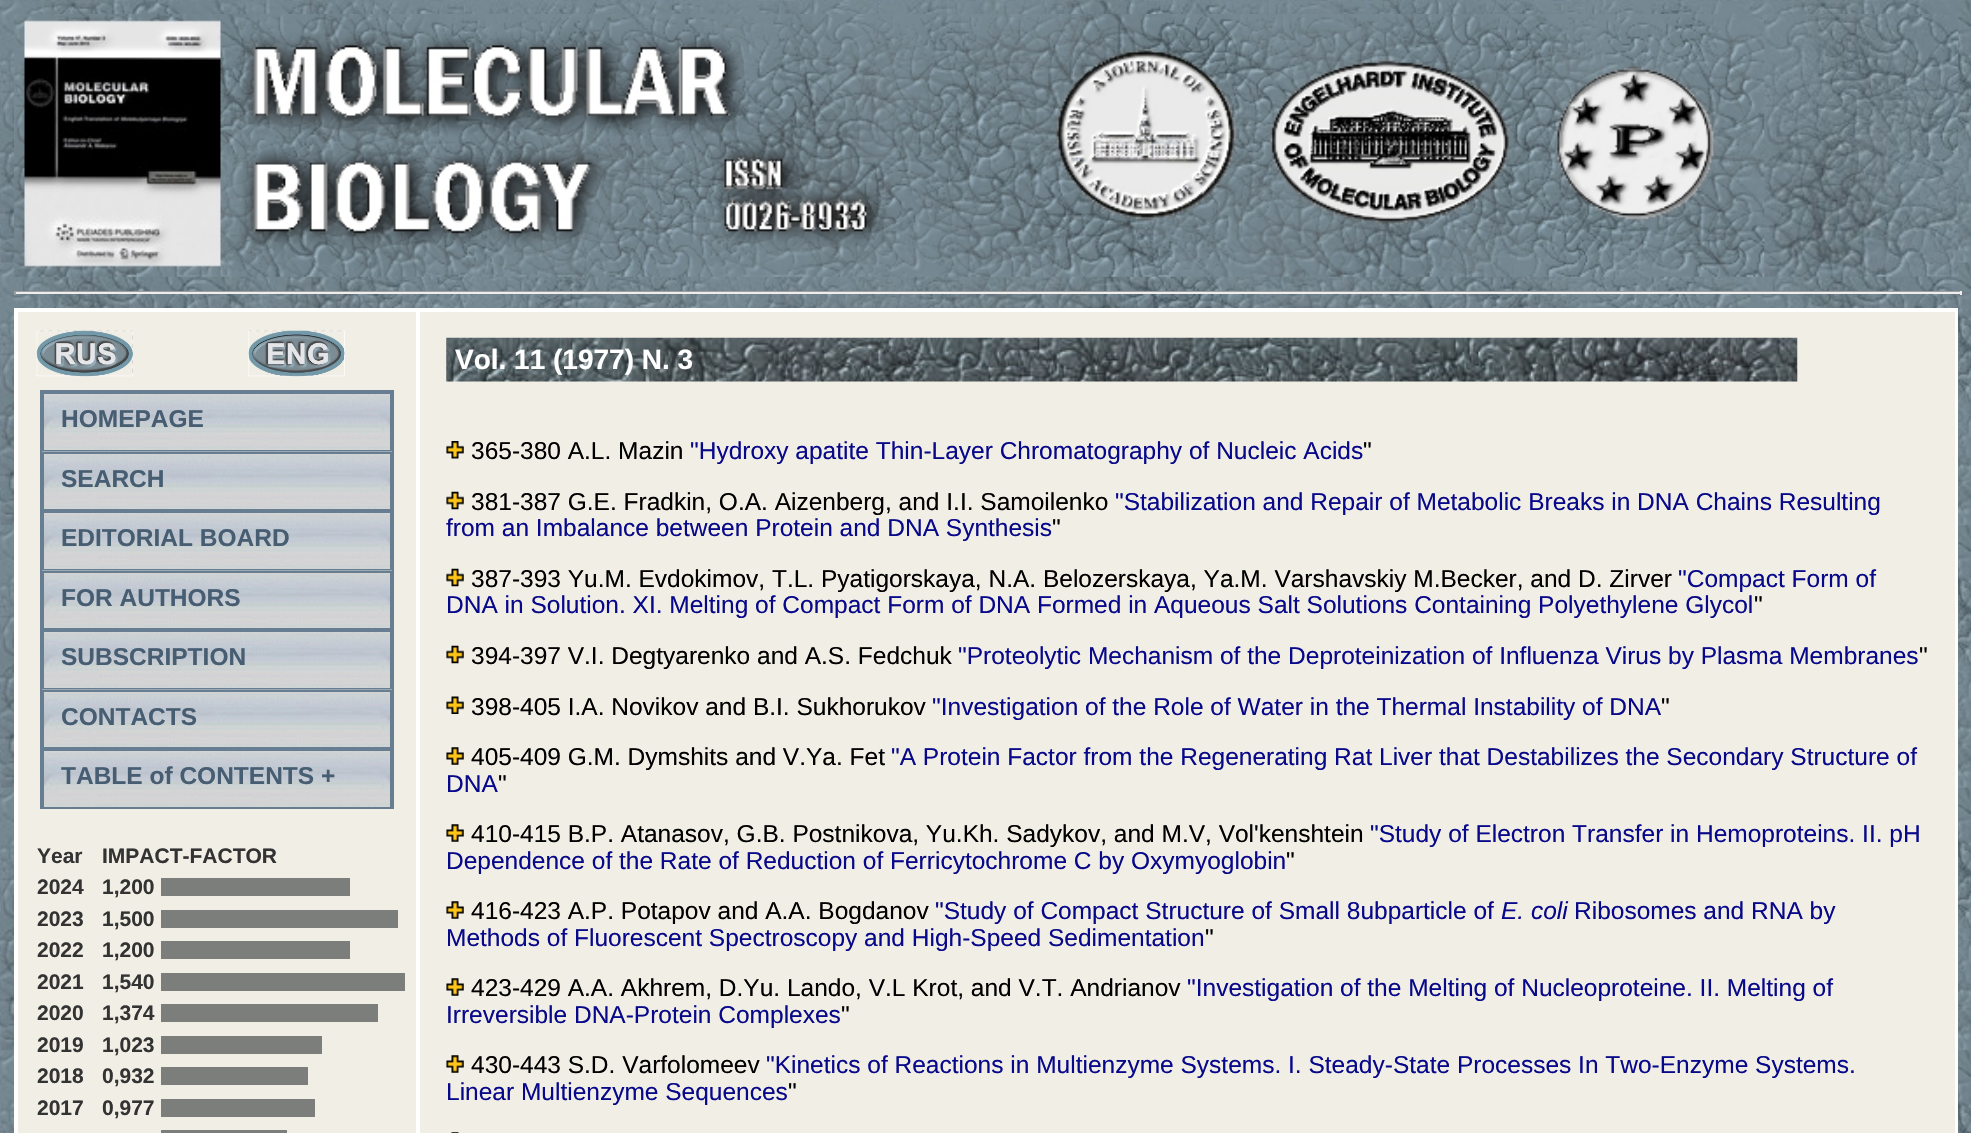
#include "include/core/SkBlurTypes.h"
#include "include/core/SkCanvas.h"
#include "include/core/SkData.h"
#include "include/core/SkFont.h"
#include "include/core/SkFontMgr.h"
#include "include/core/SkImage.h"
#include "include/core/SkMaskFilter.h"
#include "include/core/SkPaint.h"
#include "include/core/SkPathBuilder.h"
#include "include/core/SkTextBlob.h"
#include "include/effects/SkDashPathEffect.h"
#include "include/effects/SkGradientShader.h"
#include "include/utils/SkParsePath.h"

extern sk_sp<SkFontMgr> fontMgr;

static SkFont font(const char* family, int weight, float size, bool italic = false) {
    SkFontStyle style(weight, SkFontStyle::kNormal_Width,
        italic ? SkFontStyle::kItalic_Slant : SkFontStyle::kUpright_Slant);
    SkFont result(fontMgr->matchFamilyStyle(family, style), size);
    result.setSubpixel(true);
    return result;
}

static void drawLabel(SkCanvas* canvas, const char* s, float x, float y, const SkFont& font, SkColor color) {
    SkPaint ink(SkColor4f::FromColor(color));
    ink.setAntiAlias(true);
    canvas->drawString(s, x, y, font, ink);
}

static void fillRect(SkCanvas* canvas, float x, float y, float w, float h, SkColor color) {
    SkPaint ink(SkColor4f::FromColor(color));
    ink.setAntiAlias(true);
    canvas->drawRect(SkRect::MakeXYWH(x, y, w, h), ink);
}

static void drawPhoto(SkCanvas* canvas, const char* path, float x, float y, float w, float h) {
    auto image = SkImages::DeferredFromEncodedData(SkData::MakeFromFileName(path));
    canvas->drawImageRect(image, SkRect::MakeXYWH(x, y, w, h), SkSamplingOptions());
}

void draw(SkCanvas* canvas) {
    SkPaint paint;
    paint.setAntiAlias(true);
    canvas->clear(0xFFFFFFFF);
    drawPhoto(canvas, "assets/img1.png", 0, 0, 1971, 1133);
    drawPhoto(canvas, "assets/img2.png", 14, 14, 1945, 263);
    drawPhoto(canvas, "assets/img3.png", 14, 14, 1750, 263);
    fillRect(canvas, 14, 291, 1948, 1, 0xFF9F9F9F);
    fillRect(canvas, 1960, 291, 2, 4, 0xFFEEEEEE);
    fillRect(canvas, 14, 292, 1948, 2, 0xFFEEEEEE);
    fillRect(canvas, 14, 291, 2, 4, 0xFF9F9F9F);
    paint.setStroke(true);
    paint.setStrokeWidth(2);
    paint.setColor(0xFFFFFFFF);
    canvas->drawRect(SkRect::MakeXYWH(15, 309, 1942, 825), paint);
    paint.setStroke(false);
    paint.setColor(0xFFF0EEE5);
    canvas->drawRect(SkRect::MakeXYWH(17, 311, 400, 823), paint);
    paint.setStroke(true);
    paint.setColor(0xFFFFFFFF);
    canvas->drawRect(SkRect::MakeXYWH(17, 311, 400, 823), paint);
    drawPhoto(canvas, "assets/img4.png", 36, 330, 97, 47);
    drawPhoto(canvas, "assets/img5.png", 248, 330, 97, 47);
    fillRect(canvas, 40, 390, 354, 2, 0xFF677D92);
    fillRect(canvas, 392, 390, 2, 419, 0xFF677D92);
    fillRect(canvas, 40, 390, 2, 419, 0xFF677D92);
    drawPhoto(canvas, "assets/img6.png", 44, 394, 346, 56);
    paint.setColor(0xFF677D92);
    canvas->drawRect(SkRect::MakeXYWH(43, 393, 348, 58), paint);
    SkFont font1 = font("Liberation Sans", 700, 24.5f);
    drawLabel(canvas, "HOMEPAGE", 61, 427, font1, 0xFF475D72);
    drawPhoto(canvas, "assets/img7.png", 42, 451, 350, 58);
    canvas->drawRect(SkRect::MakeXYWH(43, 453, 348, 57), paint);
    drawLabel(canvas, "SEARCH", 61, 487, font1, 0xFF475D72);
    drawPhoto(canvas, "assets/img6.png", 44, 513, 346, 56);
    canvas->drawRect(SkRect::MakeXYWH(43, 512, 348, 58), paint);
    drawLabel(canvas, "EDITORIAL BOARD", 61, 546, font1, 0xFF475D72);
    drawPhoto(canvas, "assets/img7.png", 42, 570, 350, 58);
    canvas->drawRect(SkRect::MakeXYWH(43, 572, 348, 57), paint);
    drawLabel(canvas, "FOR AUTHORS", 61, 606, font1, 0xFF475D72);
    drawPhoto(canvas, "assets/img6.png", 44, 632, 346, 56);
    canvas->drawRect(SkRect::MakeXYWH(43, 631, 348, 58), paint);
    drawLabel(canvas, "SUBSCRIPTION", 61, 665, font1, 0xFF475D72);
    drawPhoto(canvas, "assets/img7.png", 42, 689, 350, 58);
    canvas->drawRect(SkRect::MakeXYWH(43, 691, 348, 57), paint);
    drawLabel(canvas, "CONTACTS", 61, 725, font1, 0xFF475D72);
    drawPhoto(canvas, "assets/img6.png", 44, 751, 346, 56);
    canvas->drawRect(SkRect::MakeXYWH(43, 750, 348, 58), paint);
    drawLabel(canvas, "TABLE of CONTENTS +", 61, 784, font1, 0xFF475D72);
    SkFont font2 = font("Liberation Sans", 700, 21);
    drawLabel(canvas, "Year", 37, 863, font2, 0xFF333333);
    drawLabel(canvas, "IMPACT-FACTOR", 102, 863, font2, 0xFF333333);
    drawLabel(canvas, "2024", 37, 894, font2, 0xFF333333);
    drawLabel(canvas, "1,200", 102, 894, font2, 0xFF333333);
    fillRect(canvas, 161, 878, 189, 18, 0xFF7B7E7B);
    drawLabel(canvas, "2023", 37, 926, font2, 0xFF333333);
    drawLabel(canvas, "1,500", 102, 926, font2, 0xFF333333);
    fillRect(canvas, 161, 910, 237, 18, 0xFF7B7E7B);
    drawLabel(canvas, "2022", 37, 957, font2, 0xFF333333);
    drawLabel(canvas, "1,200", 102, 957, font2, 0xFF333333);
    fillRect(canvas, 161, 941, 189, 18, 0xFF7B7E7B);
    drawLabel(canvas, "2021", 37, 989, font2, 0xFF333333);
    drawLabel(canvas, "1,540", 102, 989, font2, 0xFF333333);
    fillRect(canvas, 161, 973, 244, 18, 0xFF7B7E7B);
    drawLabel(canvas, "2020", 37, 1020, font2, 0xFF333333);
    drawLabel(canvas, "1,374", 102, 1020, font2, 0xFF333333);
    fillRect(canvas, 161, 1004, 217, 18, 0xFF7B7E7B);
    drawLabel(canvas, "2019", 37, 1052, font2, 0xFF333333);
    drawLabel(canvas, "1,023", 102, 1052, font2, 0xFF333333);
    fillRect(canvas, 161, 1036, 161, 18, 0xFF7B7E7B);
    drawLabel(canvas, "2018", 37, 1083, font2, 0xFF333333);
    drawLabel(canvas, "0,932", 102, 1083, font2, 0xFF333333);
    fillRect(canvas, 161, 1067, 147, 18, 0xFF7B7E7B);
    drawLabel(canvas, "2017", 37, 1115, font2, 0xFF333333);
    drawLabel(canvas, "0,977", 102, 1115, font2, 0xFF333333);
    fillRect(canvas, 161, 1099, 154, 18, 0xFF7B7E7B);
    fillRect(canvas, 161, 1130, 126, 3, 0xFF7B7E7B);
    paint.setStroke(false);
    paint.setColor(0xFFF0EEE5);
    canvas->drawRect(SkRect::MakeXYWH(419, 311, 1537, 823), paint);
    paint.setStroke(true);
    paint.setColor(0xFFFFFFFF);
    canvas->drawRect(SkRect::MakeXYWH(419, 311, 1537, 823), paint);
    drawPhoto(canvas, "assets/img8.png", 446, 337, 1352, 45);
    SkFont font3 = font("Liberation Sans", 700, 28);
    drawLabel(canvas, "Vol. 11 (1977) N. 3", 455, 369, font3, 0xFFFFFFFF);
    drawPhoto(canvas, "assets/img9.png", 446, 441, 18, 18);
    SkFont font4 = font("Liberation Sans", 400, 24.5f);
    drawLabel(canvas, "365-380 A.L. Mazin", 471, 459, font4, 0xFF000000);
    drawLabel(canvas, "\"Hydroxy apatite Thin-Layer Chromatography of Nucleic Acids", 690, 459, font4, 0xFF08088A);
    drawLabel(canvas, "\"", 1363, 459, font4, 0xFF000000);
    drawPhoto(canvas, "assets/img10.png", 446, 491, 18, 19);
    drawLabel(canvas, "381-387 G.E. Fradkin, O.A. Aizenberg, and I.I. Samoilenko", 471, 510, font4, 0xFF000000);
    drawLabel(canvas, "\"Stabilization and Repair of Metabolic Breaks in DNA Chains Resulting", 1115, 510, font4, 0xFF08088A);
    drawLabel(canvas, "from an Imbalance between Protein and DNA Synthesis", 446, 536, font4, 0xFF08088A);
    drawLabel(canvas, "\"", 1052, 536, font4, 0xFF000000);
    drawPhoto(canvas, "assets/img10.png", 446, 568, 18, 19);
    drawLabel(canvas, "387-393 Yu.M. Evdokimov, T.L. Pyatigorskaya, N.A. Belozerskaya, Ya.M. Varshavskiy M.Becker, and D. Zirver", 471, 587, font4, 0xFF000000);
    drawLabel(canvas, "\"Compact Form of", 1678, 587, font4, 0xFF08088A);
    drawLabel(canvas, "DNA in Solution. XI. Melting of Compact Form of DNA Formed in Aqueous Salt Solutions Containing Polyethylene Glycol", 446, 613, font4, 0xFF08088A);
    drawLabel(canvas, "\"", 1754, 613, font4, 0xFF000000);
    drawPhoto(canvas, "assets/img10.png", 446, 645, 18, 19);
    drawLabel(canvas, "394-397 V.I. Degtyarenko and A.S. Fedchuk", 471, 664, font4, 0xFF000000);
    drawLabel(canvas, "\"Proteolytic Mechanism of the Deproteinization of Influenza Virus by Plasma Membranes", 958, 664, font4, 0xFF08088A);
    drawLabel(canvas, "\"", 1919, 664, font4, 0xFF000000);
    drawPhoto(canvas, "assets/img11.png", 446, 696, 18, 18);
    drawLabel(canvas, "398-405 I.A. Novikov and B.I. Sukhorukov", 471, 715, font4, 0xFF000000);
    drawLabel(canvas, "\"Investigation of the Role of Water in the Thermal Instability of DNA", 932, 715, font4, 0xFF08088A);
    drawLabel(canvas, "\"", 1661, 715, font4, 0xFF000000);
    drawPhoto(canvas, "assets/img12.png", 446, 747, 18, 18);
    drawLabel(canvas, "405-409 G.M. Dymshits and V.Ya. Fet", 471, 765, font4, 0xFF000000);
    drawLabel(canvas, "\"A Protein Factor from the Regenerating Rat Liver that Destabilizes the Secondary Structure of", 891, 765, font4, 0xFF08088A);
    drawLabel(canvas, "DNA", 446, 792, font4, 0xFF08088A);
    drawLabel(canvas, "\"", 498, 792, font4, 0xFF000000);
    drawPhoto(canvas, "assets/img12.png", 446, 824, 18, 18);
    drawLabel(canvas, "410-415 B.P. Atanasov, G.B. Postnikova, Yu.Kh. Sadykov, and M.V, Vol'kenshtein", 471, 842, font4, 0xFF000000);
    drawLabel(canvas, "\"Study of Electron Transfer in Hemoproteins. II. pH", 1370, 842, font4, 0xFF08088A);
    drawLabel(canvas, "Dependence of the Rate of Reduction of Ferricytochrome С by Oxymyoglobin", 446, 869, font4, 0xFF08088A);
    drawLabel(canvas, "\"", 1286, 869, font4, 0xFF000000);
    drawPhoto(canvas, "assets/img12.png", 446, 901, 18, 18);
    drawLabel(canvas, "416-423 A.P. Potapov and A.A. Bogdanov", 471, 919, font4, 0xFF000000);
    drawLabel(canvas, "\"Study of Compact Structure of Small 8ubparticle of", 935, 919, font4, 0xFF08088A);
    SkFont font5 = font("Liberation Sans", 400, 24.5f, true);
    drawLabel(canvas, "Е. coli", 1501, 919, font5, 0xFF08088A);
    drawLabel(canvas, "Ribosomes and RNA by", 1574, 919, font4, 0xFF08088A);
    drawLabel(canvas, "Methods of Fluorescent Spectroscopy and High-Speed Sedimentation", 446, 946, font4, 0xFF08088A);
    drawLabel(canvas, "\"", 1205, 946, font4, 0xFF000000);
    drawPhoto(canvas, "assets/img12.png", 446, 978, 18, 18);
    drawLabel(canvas, "423-429 A.A. Akhrem, D.Yu. Lando, V.L Krot, and V.T. Andrianov", 471, 996, font4, 0xFF000000);
    drawLabel(canvas, "\"Investigation of the Melting of Nucleoproteine. II. Melting of", 1187, 996, font4, 0xFF08088A);
    drawLabel(canvas, "Irreversible DNA-Protein Complexes", 446, 1023, font4, 0xFF08088A);
    drawLabel(canvas, "\"", 841, 1023, font4, 0xFF000000);
    drawPhoto(canvas, "assets/img12.png", 446, 1055, 18, 18);
    drawLabel(canvas, "430-443 S.D. Varfolomeev", 471, 1073, font4, 0xFF000000);
    drawLabel(canvas, "\"Kinetics of Reactions in Multienzyme Systems. I. Steady-State Processes In Two-Enzyme Systems.", 766, 1073, font4, 0xFF08088A);
    drawLabel(canvas, "Linear Multienzyme Sequences", 446, 1100, font4, 0xFF08088A);
    drawLabel(canvas, "\"", 788, 1100, font4, 0xFF000000);
    drawPhoto(canvas, "assets/img13.png", 451, 1132, 8, 1);
}
